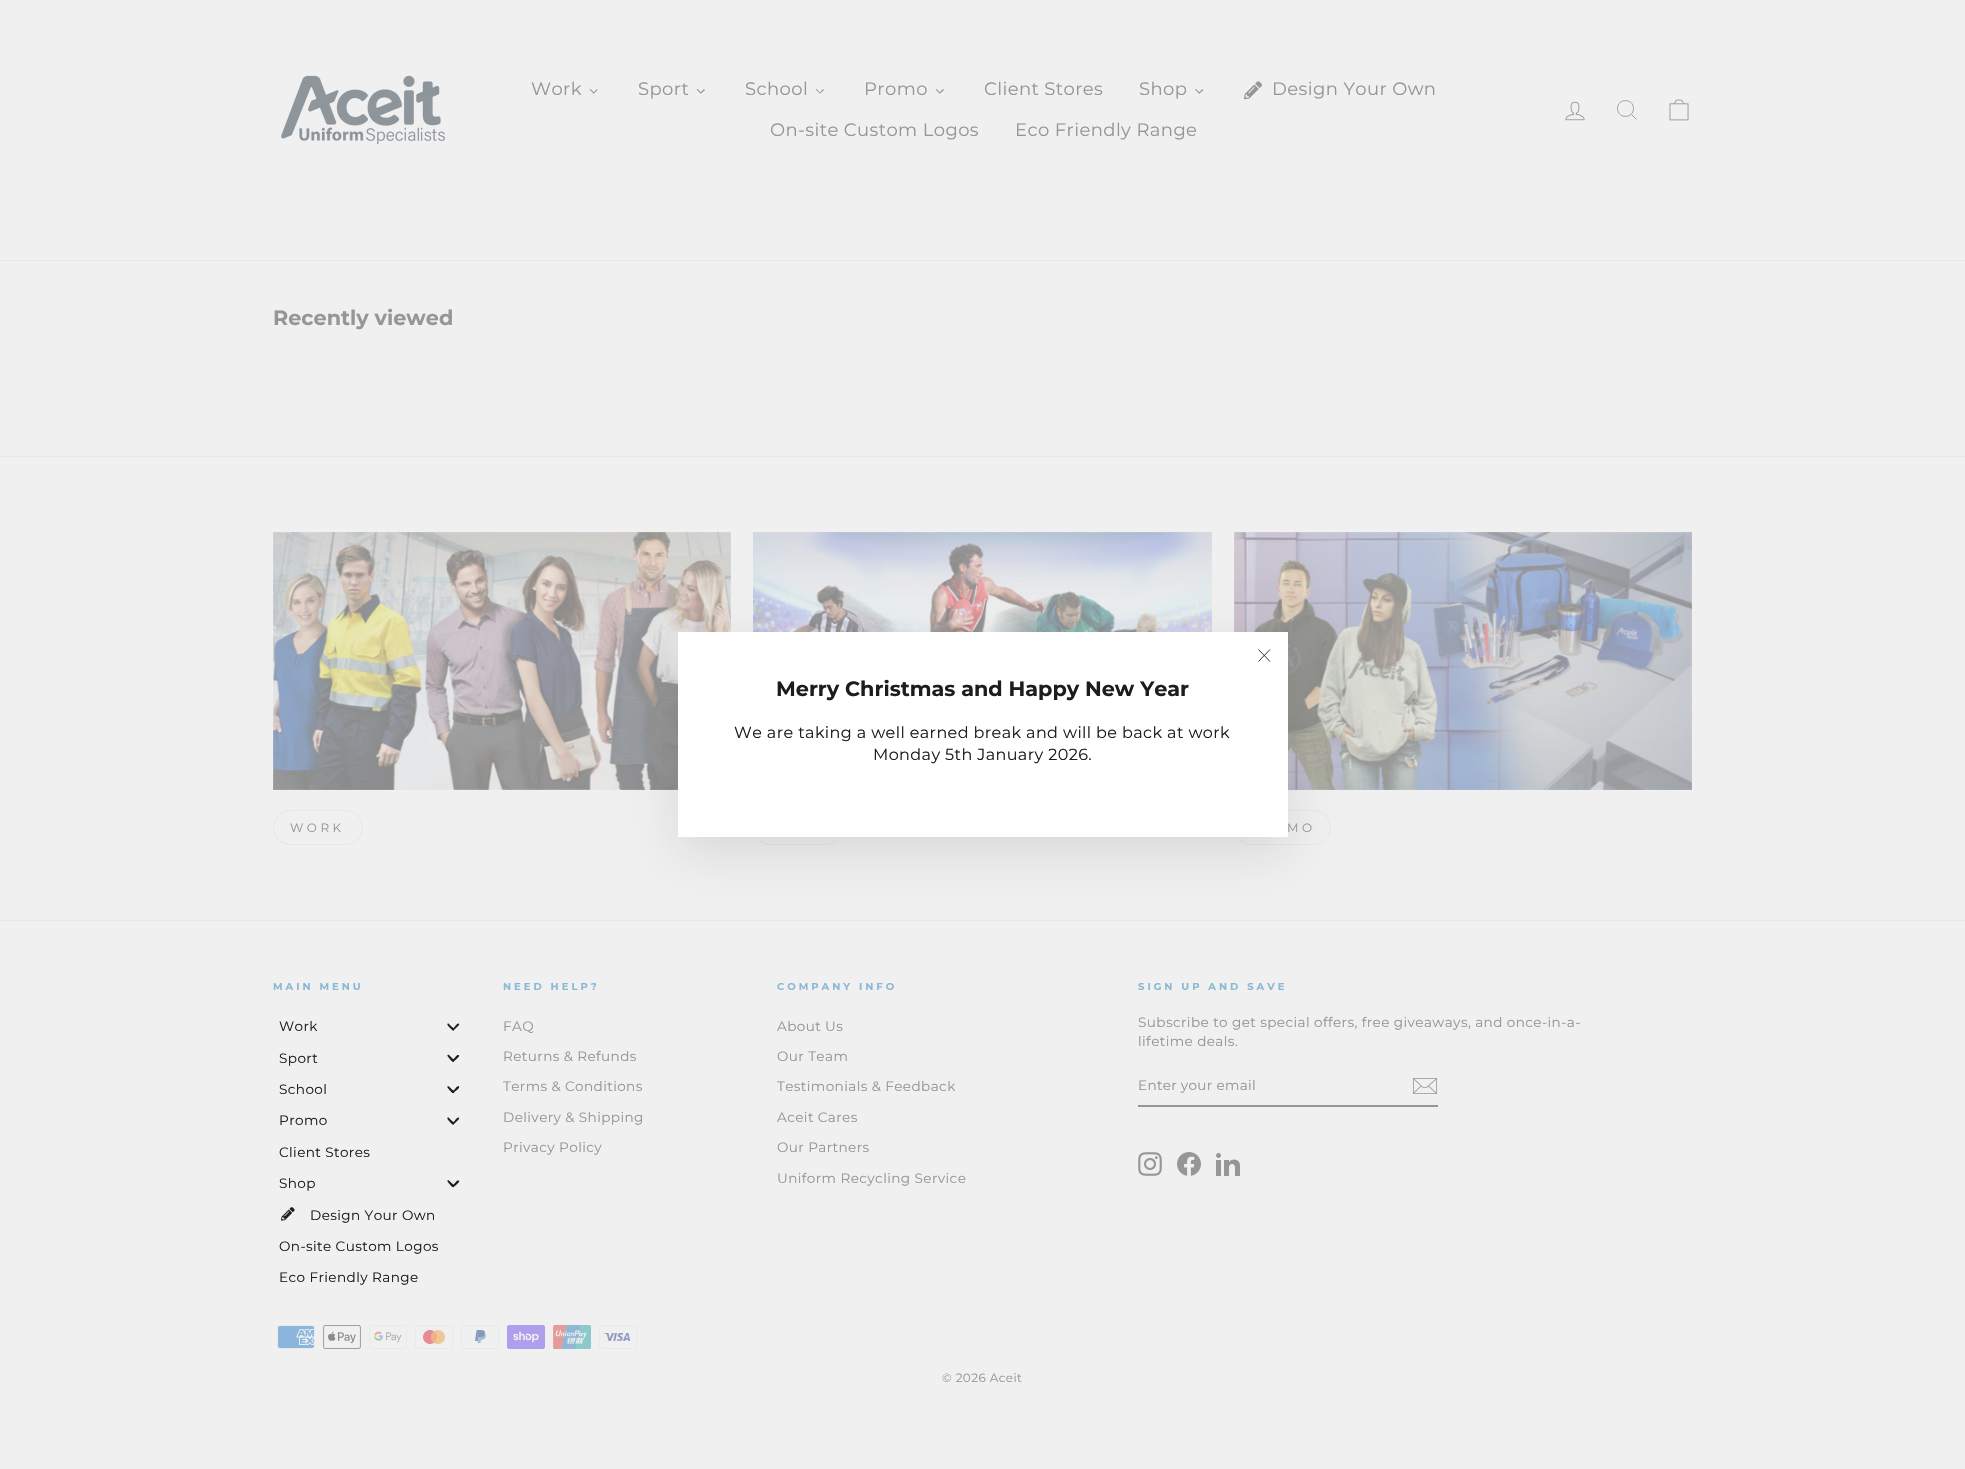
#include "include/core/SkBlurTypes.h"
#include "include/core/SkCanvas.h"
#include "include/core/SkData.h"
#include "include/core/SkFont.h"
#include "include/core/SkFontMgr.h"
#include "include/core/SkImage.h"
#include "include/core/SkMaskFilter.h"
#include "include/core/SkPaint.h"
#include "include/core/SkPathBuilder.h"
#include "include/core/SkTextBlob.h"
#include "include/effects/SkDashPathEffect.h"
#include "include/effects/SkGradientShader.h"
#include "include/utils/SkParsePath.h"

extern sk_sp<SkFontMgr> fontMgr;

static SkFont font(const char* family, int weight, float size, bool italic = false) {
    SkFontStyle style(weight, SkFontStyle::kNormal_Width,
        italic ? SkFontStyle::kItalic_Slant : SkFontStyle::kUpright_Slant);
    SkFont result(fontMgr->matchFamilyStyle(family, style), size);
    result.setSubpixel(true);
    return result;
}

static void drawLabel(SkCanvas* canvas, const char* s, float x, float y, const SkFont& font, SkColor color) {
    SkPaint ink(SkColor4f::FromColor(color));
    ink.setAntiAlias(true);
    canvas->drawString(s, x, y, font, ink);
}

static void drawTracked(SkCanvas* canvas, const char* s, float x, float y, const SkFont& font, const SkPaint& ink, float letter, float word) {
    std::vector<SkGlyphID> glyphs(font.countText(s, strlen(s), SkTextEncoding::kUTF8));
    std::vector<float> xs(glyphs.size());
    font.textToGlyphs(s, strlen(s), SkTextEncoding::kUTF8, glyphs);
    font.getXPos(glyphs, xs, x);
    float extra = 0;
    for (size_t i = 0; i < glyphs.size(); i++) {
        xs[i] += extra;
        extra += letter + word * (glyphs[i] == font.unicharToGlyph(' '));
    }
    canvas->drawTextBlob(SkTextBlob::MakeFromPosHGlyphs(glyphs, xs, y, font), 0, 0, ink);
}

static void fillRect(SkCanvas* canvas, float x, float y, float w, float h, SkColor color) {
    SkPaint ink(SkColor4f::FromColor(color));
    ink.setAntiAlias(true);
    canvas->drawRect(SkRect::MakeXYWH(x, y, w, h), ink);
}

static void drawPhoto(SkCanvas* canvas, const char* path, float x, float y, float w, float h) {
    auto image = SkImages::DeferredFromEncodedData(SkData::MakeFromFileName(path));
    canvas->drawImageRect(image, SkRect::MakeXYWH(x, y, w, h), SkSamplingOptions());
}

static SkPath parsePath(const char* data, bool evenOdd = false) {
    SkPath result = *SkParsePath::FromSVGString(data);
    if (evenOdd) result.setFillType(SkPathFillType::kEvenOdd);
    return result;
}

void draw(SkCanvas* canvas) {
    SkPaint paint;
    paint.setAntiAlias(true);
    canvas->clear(0xFFF0F0F0);
    drawPhoto(canvas, "assets/img1.png", 281, 75, 164, 70);
    SkFont font1 = font("Montserrat", 400, 18);
    paint.setColor(0xFF959696);
    drawTracked(canvas, "Work", 531, 95, font1, paint, 0.4f, 0);
    canvas->drawPath(parsePath("M597 89L597.5 90L594 93.5L593 93Z"), paint);
    canvas->drawPath(parsePath("M590.5 89L594.5 93L593.5 93.5L589.5 89.5Z"), paint);
    drawTracked(canvas, "Sport", 638, 95, font1, paint, 0.4f, 0);
    canvas->drawPath(parsePath("M704 89L705 90L701 93.5L700 93Z"), paint);
    canvas->drawPath(parsePath("M697.5 89L701.5 93L700.5 93.5L696.5 89.5Z"), paint);
    drawTracked(canvas, "School", 745, 95, font1, paint, 0.4f, 0);
    canvas->drawPath(parsePath("M823 89L824 90L820 93.5L819.5 93Z"), paint);
    canvas->drawPath(parsePath("M816.5 89L820.5 93L820 93.5L815.5 89.5Z"), paint);
    drawTracked(canvas, "Promo", 864, 95, font1, paint, 0.4f, 0);
    canvas->drawPath(parsePath("M943 89L944 90L940 93.5L939 93Z"), paint);
    canvas->drawPath(parsePath("M936.5 89L940.5 93L939.5 93.5L935.5 89.5Z"), paint);
    drawTracked(canvas, "Client Stores", 984, 95, font1, paint, 0.4f, 0);
    drawTracked(canvas, "Shop", 1139, 95, font1, paint, 0.4f, 0);
    canvas->drawPath(parsePath("M1202.5 89L1203.5 90L1199.5 93.5L1198.5 93Z"), paint);
    canvas->drawPath(parsePath("M1196 89L1200 93L1199 93.5L1195 89.5Z"), paint);
    drawPhoto(canvas, "assets/img2.png", 1244, 81, 18, 19);
    drawTracked(canvas, "Design Your Own", 1272, 95, font1, paint, 0.4f, 0);
    drawTracked(canvas, "On-site Custom Logos", 770, 136, font1, paint, 0.4f, 0);
    drawTracked(canvas, "Eco Friendly Range", 1015, 136, font1, paint, 0.4f, 0);
    drawPhoto(canvas, "assets/img3.png", 1565, 101, 20, 20);
    paint.setStroke(true);
    paint.setStrokeWidth(0.9f);
    canvas->drawPath(parsePath("M1633.5 108.5C1633.5 119 1617.5 119 1617.5 108.5C1617.5 98 1633.5 98 1633.5 108.5ZM1636.5 119.5L1631.5 114.5"), paint);
    drawPhoto(canvas, "assets/img4.png", 1669, 99, 20, 22);
    fillRect(canvas, 0, 260, 1965, 1, 0xFFE7E7E4);
    SkFont font2 = font("Montserrat", 700, 20.75f);
    drawLabel(canvas, "Recently viewed", 273, 325, font2, 0xFF959696);
    drawPhoto(canvas, "assets/img5.png", 273, 532, 458, 258);
    drawPhoto(canvas, "assets/img6.png", 753, 532, 459, 100);
    paint.setStrokeWidth(1);
    paint.setColor(0xFFE7E7E4);
    canvas->drawRoundRect(SkRect::MakeXYWH(753.5f, 810.5f, 89, 34), 17, 17, paint);
    drawPhoto(canvas, "assets/img7.png", 1234, 532, 458, 258);
    canvas->drawRoundRect(SkRect::MakeXYWH(1234.5f, 810.5f, 96, 34), 17, 17, paint);
    fillRect(canvas, 0, 920, 1965, 1, 0xFFE7E7E4);
    paint.setStroke(false);
    paint.setColor(0x1A000000);
    paint.setMaskFilter(SkMaskFilter::MakeBlur(kNormal_SkBlurStyle, 22.5f));
    canvas->drawRect(SkRect::MakeXYWH(678, 647, 610, 205), paint);
    paint.setMaskFilter(nullptr);
    fillRect(canvas, 678, 632, 610, 205, 0xFFFFFFFF);
    paint.setStroke(true);
    paint.setStrokeWidth(0.9f);
    paint.setColor(0xFF1C1D1D);
    canvas->drawPath(parsePath("M1258.5 649.5L1270 661.5M1270 649.5L1258.5 661.5"), paint);
    drawLabel(canvas, "Merry Christmas and Happy New Year", 776, 696, font2, 0xFF1C1D1D);
    SkFont font3 = font("Montserrat", 400, 16);
    paint.setStroke(false);
    drawTracked(canvas, "We are taking a well earned break and will be back at work", 734, 738, font3, paint, 0.4f, 0);
    drawTracked(canvas, "Monday 5th January 2026.", 873, 760, font3, paint, 0.4f, 0);
    fillRect(canvas, 0, 456, 1965, 1, 0xFFE7E7E4);
    paint.setStroke(true);
    paint.setStrokeWidth(1);
    paint.setColor(0xFFE7E7E4);
    canvas->drawRoundRect(SkRect::MakeXYWH(273.5f, 810.5f, 89, 34), 17, 17, paint);
    SkFont font4 = font("Montserrat", 400, 12);
    paint.setStroke(false);
    paint.setColor(0xFF959696);
    drawTracked(canvas, "WORK", 290, 832, font4, paint, 3.5f, 0);
    drawTracked(canvas, "MO", 1287, 832, font4, paint, 3.5f, 0);
    SkFont font5 = font("Montserrat", 700, 10);
    paint.setColor(0xFF8AB9D5);
    drawTracked(canvas, "MAIN MENU", 273, 990, font5, paint, 3, 0);
    SkFont font6 = font("Montserrat", 400, 13.6f);
    paint.setColor(0xFF1C1D1D);
    drawTracked(canvas, "Work", 279, 1031, font6, paint, 0.4f, 0);
    canvas->drawPath(parsePath("M449 1024L451.5 1026.5C452 1027 454.5 1028.5 454 1029.5C453.5 1032.5 449.5 1027 449 1027L447.5 1025C447 1024 448 1023 449 1024Z"), paint);
    canvas->drawPath(parsePath("M452.5 1029L455 1026.5C455.5 1025.5 457 1023.5 458.5 1023.5C461 1024 456 1028 455.5 1028.5L453.5 1030.5C452.5 1031 452 1029.5 452.5 1029Z"), paint);
    drawTracked(canvas, "Sport", 279, 1063, font6, paint, 0.4f, 0);
    canvas->drawPath(parsePath("M449 1055L451.5 1057.5C452 1058.5 454.5 1059.5 454 1061C453.5 1064 449.5 1058.5 449 1058L447.5 1056C447 1055.5 448 1054.5 449 1055Z"), paint);
    canvas->drawPath(parsePath("M452.5 1060L455 1057.5C455.5 1057 457 1054.5 458.5 1055C461 1055.5 456 1059.5 455.5 1060L453.5 1061.5C452.5 1062 452 1061 452.5 1060Z"), paint);
    drawTracked(canvas, "School", 279, 1094, font6, paint, 0.4f, 0);
    canvas->drawPath(parsePath("M449 1086.5L451.5 1089C452 1089.5 454.5 1091 454 1092.5C453.5 1095 449.5 1090 449 1089.5L447.5 1087.5C447 1086.5 448 1086 449 1086.5Z"), paint);
    canvas->drawPath(parsePath("M452.5 1091.5L455 1089C455.5 1088.5 457 1086 458.5 1086C461 1087 456 1091 455.5 1091L453.5 1093C452.5 1093.5 452 1092 452.5 1091.5Z"), paint);
    drawTracked(canvas, "Promo", 279, 1125, font6, paint, 0.4f, 0);
    canvas->drawPath(parsePath("M449 1118L451.5 1120.5C452 1121 454.5 1122.5 454 1123.5C453.5 1126.5 449.5 1121.5 449 1121L447.5 1119C447 1118 448 1117 449 1118Z"), paint);
    canvas->drawPath(parsePath("M452.5 1123L455 1120.5C455.5 1119.5 457 1117.5 458.5 1117.5C461 1118 456 1122 455.5 1122.5L453.5 1124.5C452.5 1125 452 1123.5 452.5 1123Z"), paint);
    drawTracked(canvas, "Client Stores", 279, 1157, font6, paint, 0.4f, 0);
    drawTracked(canvas, "Shop", 279, 1188, font6, paint, 0.4f, 0);
    canvas->drawPath(parsePath("M449 1180.5L451.5 1183C452 1183.5 454.5 1185 454 1186.5C453.5 1189 449.5 1184 449 1183.5L447.5 1181.5C447 1180.5 448 1180 449 1180.5Z"), paint);
    canvas->drawPath(parsePath("M452.5 1185.5L455 1183C455.5 1182.5 457 1180 458.5 1180.5C461 1181 456 1185 455.5 1185.5L453.5 1187C452.5 1187.5 452 1186 452.5 1185.5Z"), paint);
    drawPhoto(canvas, "assets/img8.png", 281, 1207, 14, 14);
    drawTracked(canvas, "Design Your Own", 310, 1220, font6, paint, 0.4f, 0);
    drawTracked(canvas, "On-site Custom Logos", 279, 1251, font6, paint, 0.4f, 0);
    drawTracked(canvas, "Eco Friendly Range", 279, 1282, font6, paint, 0.4f, 0);
    paint.setColor(0xFF8AB9D5);
    drawTracked(canvas, "NEED HELP?", 503, 990, font5, paint, 3, 0);
    paint.setColor(0xFF959696);
    drawTracked(canvas, "FAQ", 503, 1031, font6, paint, 0.4f, 0);
    drawTracked(canvas, "Returns & Refunds", 503, 1061, font6, paint, 0.4f, 0);
    drawTracked(canvas, "Terms & Conditions", 503, 1091, font6, paint, 0.4f, 0);
    drawTracked(canvas, "Delivery & Shipping", 503, 1122, font6, paint, 0.4f, 0);
    drawTracked(canvas, "Privacy Policy", 503, 1152, font6, paint, 0.4f, 0);
    paint.setColor(0xFF8AB9D5);
    drawTracked(canvas, "COMPANY INFO", 777, 990, font5, paint, 3, 0);
    paint.setColor(0xFF959696);
    drawTracked(canvas, "About Us", 777, 1031, font6, paint, 0.4f, 0);
    drawTracked(canvas, "Our Team", 777, 1061, font6, paint, 0.4f, 0);
    drawTracked(canvas, "Testimonials & Feedback", 777, 1091, font6, paint, 0.4f, 0);
    drawTracked(canvas, "Aceit Cares", 777, 1122, font6, paint, 0.4f, 0);
    drawTracked(canvas, "Our Partners", 777, 1152, font6, paint, 0.4f, 0);
    drawTracked(canvas, "Uniform Recycling Service", 777, 1183, font6, paint, 0.4f, 0);
    paint.setColor(0xFF8AB9D5);
    drawTracked(canvas, "SIGN UP AND SAVE", 1138, 990, font5, paint, 3, 0);
    paint.setColor(0xFF959696);
    drawTracked(canvas, "Subscribe to get special offers, free giveaways, and once-in-a-", 1138, 1027, font6, paint, 0.4f, 0);
    drawTracked(canvas, "lifetime deals.", 1138, 1046, font6, paint, 0.4f, 0);
    fillRect(canvas, 1138, 1105, 300, 2, 0xFF959696);
    drawTracked(canvas, "Enter your email", 1138, 1090, font6, paint, 0.3f, 0);
    drawPhoto(canvas, "assets/img9.png", 1412, 1078, 26, 16);
    drawPhoto(canvas, "assets/img10.png", 1138, 1152, 24, 24);
    drawPhoto(canvas, "assets/img11.png", 1177, 1152, 24, 24);
    drawPhoto(canvas, "assets/img12.png", 1216, 1153, 24, 23);
    drawPhoto(canvas, "assets/img13.png", 277, 1325, 38, 24);
    drawPhoto(canvas, "assets/img14.png", 323, 1325, 38, 24);
    drawPhoto(canvas, "assets/img15.png", 369, 1325, 38, 24);
    drawPhoto(canvas, "assets/img16.png", 415, 1325, 38, 24);
    drawPhoto(canvas, "assets/img17.png", 461, 1325, 38, 24);
    drawPhoto(canvas, "assets/img18.png", 507, 1325, 38, 24);
    drawPhoto(canvas, "assets/img19.png", 553, 1325, 38, 24);
    drawPhoto(canvas, "assets/img20.png", 599, 1325, 38, 24);
    drawTracked(canvas, "© 2026 Aceit", 942, 1382, font4, paint, 0.4f, 0);
}
